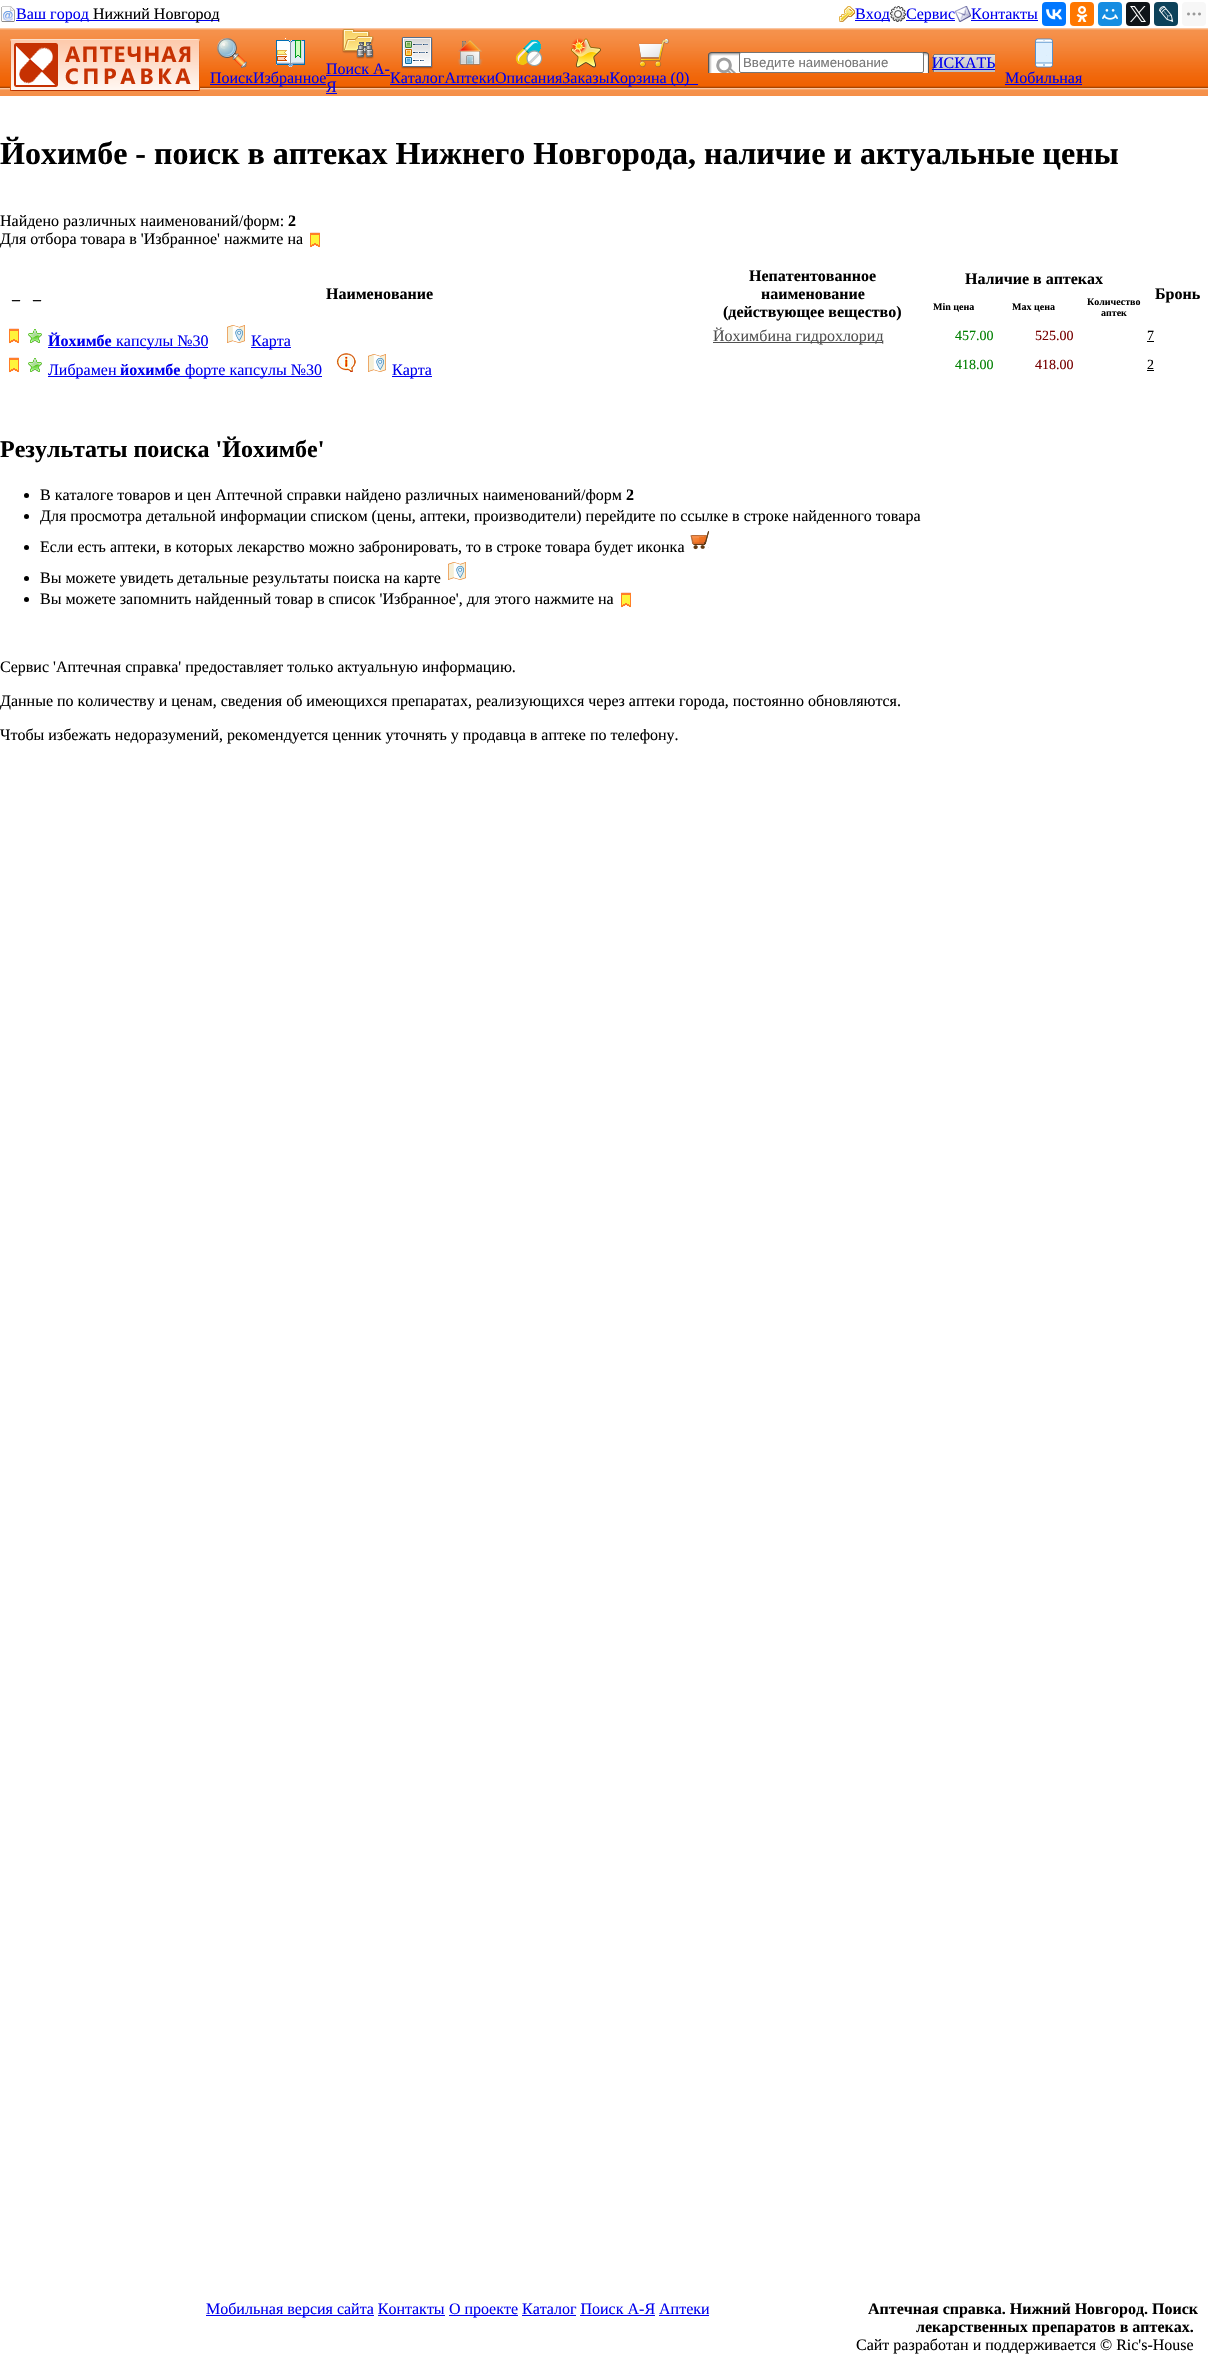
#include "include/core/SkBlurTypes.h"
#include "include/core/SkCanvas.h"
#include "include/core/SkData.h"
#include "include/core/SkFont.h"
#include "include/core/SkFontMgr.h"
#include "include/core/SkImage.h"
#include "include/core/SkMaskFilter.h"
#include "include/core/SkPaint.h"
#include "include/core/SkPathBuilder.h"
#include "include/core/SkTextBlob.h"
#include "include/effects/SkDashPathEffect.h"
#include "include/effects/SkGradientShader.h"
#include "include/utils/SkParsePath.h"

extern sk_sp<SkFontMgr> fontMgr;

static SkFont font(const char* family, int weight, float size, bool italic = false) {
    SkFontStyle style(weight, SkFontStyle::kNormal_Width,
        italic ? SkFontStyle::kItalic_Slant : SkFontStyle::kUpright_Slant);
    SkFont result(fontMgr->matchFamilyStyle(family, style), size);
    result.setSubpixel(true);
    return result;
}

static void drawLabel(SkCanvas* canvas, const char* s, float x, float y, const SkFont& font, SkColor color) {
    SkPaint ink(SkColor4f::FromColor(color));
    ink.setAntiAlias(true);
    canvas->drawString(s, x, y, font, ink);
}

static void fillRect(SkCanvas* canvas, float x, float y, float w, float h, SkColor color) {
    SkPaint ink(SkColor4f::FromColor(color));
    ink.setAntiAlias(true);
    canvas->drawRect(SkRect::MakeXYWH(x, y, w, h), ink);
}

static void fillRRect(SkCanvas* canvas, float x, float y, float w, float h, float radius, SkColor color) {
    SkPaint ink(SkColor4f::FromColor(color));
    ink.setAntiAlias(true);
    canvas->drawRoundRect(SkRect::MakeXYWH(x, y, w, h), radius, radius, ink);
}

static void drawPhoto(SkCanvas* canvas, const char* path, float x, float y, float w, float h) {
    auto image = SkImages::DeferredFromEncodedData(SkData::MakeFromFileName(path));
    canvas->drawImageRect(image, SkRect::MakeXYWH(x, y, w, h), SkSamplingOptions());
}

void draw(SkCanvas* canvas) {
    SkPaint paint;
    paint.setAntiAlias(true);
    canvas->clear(0xFFFFFFFF);
    drawPhoto(canvas, "assets/img1.png", 1, 6, 14, 16);
    fillRect(canvas, 16, 20, 203, 1, 0xFF0000EE);
    SkFont font1 = font("Liberation Serif", 400, 16);
    drawLabel(canvas, "Ваш город", 16, 19, font1, 0xFF0000EE);
    drawLabel(canvas, "Нижний Новгород", 93, 19, font1, 0xFF000000);
    drawPhoto(canvas, "assets/img2.png", 839, 6, 16, 16);
    fillRect(canvas, 855, 20, 35, 1, 0xFF0000EE);
    drawLabel(canvas, "Вход", 855, 19, font1, 0xFF0000EE);
    drawPhoto(canvas, "assets/img3.png", 890, 6, 16, 16);
    fillRect(canvas, 906, 20, 49, 1, 0xFF0000EE);
    drawLabel(canvas, "Сервис", 906, 19, font1, 0xFF0000EE);
    drawPhoto(canvas, "assets/img4.png", 955, 6, 16, 16);
    drawLabel(canvas, "Контакты", 971, 19, font1, 0xFF0000EE);
    fillRect(canvas, 971, 20, 67, 1, 0xFF0000EE);
    fillRRect(canvas, 1042, 2, 24, 24, 4, 0xFF0077FF);
    drawPhoto(canvas, "assets/img5.png", 1046, 9, 16, 11);
    fillRRect(canvas, 1070, 2, 24, 24, 4, 0xFFFF7700);
    drawPhoto(canvas, "assets/img6.png", 1076, 6, 12, 16);
    fillRRect(canvas, 1098, 2, 24, 24, 4, 0xFF168DE2);
    drawPhoto(canvas, "assets/img7.png", 1102, 9, 16, 11);
    fillRRect(canvas, 1126, 2, 24, 24, 4, 0xFF0F1419);
    drawPhoto(canvas, "assets/img8.png", 1130, 6, 16, 16);
    fillRRect(canvas, 1154, 2, 24, 24, 4, 0xFF0D425A);
    drawPhoto(canvas, "assets/img9.png", 1159, 6, 15, 16);
    fillRRect(canvas, 1182, 2, 24, 24, 4, 0xFFF7F7F7);
    drawPhoto(canvas, "assets/img10.png", 1187, 12, 14, 4);
    drawPhoto(canvas, "assets/img11.png", 0, 28, 1208, 68);
    drawPhoto(canvas, "assets/img12.png", 10, 39, 190, 52);
    drawPhoto(canvas, "assets/img13.png", 276, 38, 29, 29);
    drawPhoto(canvas, "assets/img14.png", 342, 29, 32, 30);
    drawLabel(canvas, "Поиск А-", 326, 74, font1, 0xFF0000EE);
    fillRect(canvas, 326, 75, 64, 1, 0xFF0000EE);
    drawLabel(canvas, "Я", 326, 92, font1, 0xFF0000EE);
    fillRect(canvas, 326, 93, 11, 1, 0xFF0000EE);
    drawPhoto(canvas, "assets/img15.png", 457, 39, 26, 27);
    drawPhoto(canvas, "assets/img16.png", 515, 40, 28, 27);
    drawPhoto(canvas, "assets/img17.png", 571, 38, 30, 30);
    drawPhoto(canvas, "assets/img18.png", 638, 38, 32, 30);
    drawPhoto(canvas, "assets/img19.png", 708, 52, 5, 21);
    drawPhoto(canvas, "assets/img20.png", 713, 52, 26, 21);
    drawPhoto(canvas, "assets/img21.png", 739, 52, 185, 21);
    paint.setColor(0xFFFFFFFF);
    canvas->drawRoundRect(SkRect::MakeXYWH(739.5f, 52.5f, 184, 20), 1.5f, 1.5f, paint);
    paint.setStroke(true);
    paint.setStrokeWidth(1);
    paint.setColor(0xFF767676);
    canvas->drawRoundRect(SkRect::MakeXYWH(739.5f, 52.5f, 184, 20), 1.5f, 1.5f, paint);
    SkFont font2 = font("Liberation Sans", 400, 13.25f);
    drawLabel(canvas, "Введите наименование", 743, 67, font2, 0xFF777777);
    drawPhoto(canvas, "assets/img22.png", 924, 52, 5, 21);
    drawPhoto(canvas, "assets/img23.png", 932, 54, 63, 18);
    drawLabel(canvas, "ИСКАТЬ", 932, 68, font1, 0xFF0000EE);
    fillRect(canvas, 932, 69, 63, 1, 0xFF0000EE);
    drawPhoto(canvas, "assets/img24.png", 217, 38, 30, 30);
    fillRect(canvas, 210, 84, 116, 1, 0xFF0000EE);
    drawLabel(canvas, "ПоискИзбранное", 210, 83, font1, 0xFF0000EE);
    drawPhoto(canvas, "assets/img25.png", 401, 37, 32, 32);
    fillRect(canvas, 390, 84, 308, 1, 0xFF0000EE);
    drawLabel(canvas, "КаталогАптекиОписанияЗаказыКорзина (0)", 390, 83, font1, 0xFF0000EE);
    drawPhoto(canvas, "assets/img26.png", 1035, 38, 18, 30);
    drawLabel(canvas, "Мобильная", 1005, 83, font1, 0xFF0000EE);
    fillRect(canvas, 1005, 84, 77, 1, 0xFF0000EE);
    SkFont font3 = font("Liberation Serif", 700, 32);
    drawLabel(canvas, "Йохимбе - поиск в аптеках Нижнего Новгорода, наличие и актуальные цены", 0, 164, font3, 0xFF000000);
    drawLabel(canvas, "Найдено различных наименований/форм:", 0, 226, font1, 0xFF000000);
    SkFont font4 = font("Liberation Serif", 700, 16);
    drawLabel(canvas, "2", 288, 226, font4, 0xFF000000);
    drawLabel(canvas, "Для отбора товара в 'Избранное' нажмите на", 0, 244, font1, 0xFF000000);
    drawPhoto(canvas, "assets/img27.png", 310, 232, 10, 16);
    drawLabel(canvas, "Непатентованное", 749, 281, font4, 0xFF000000);
    drawLabel(canvas, "наименование", 761, 299, font4, 0xFF000000);
    drawLabel(canvas, "(действующее вещество)", 723, 317, font4, 0xFF000000);
    drawLabel(canvas, "Наличие в аптеках", 965, 284, font4, 0xFF000000);
    drawLabel(canvas, "_", 12, 299, font4, 0xFF000000);
    drawLabel(canvas, "_", 33, 299, font4, 0xFF000000);
    drawLabel(canvas, "Наименование", 326, 299, font4, 0xFF000000);
    drawLabel(canvas, "Бронь", 1155, 299, font4, 0xFF000000);
    SkFont font5 = font("Liberation Serif", 700, 10);
    drawLabel(canvas, "Мin цена", 933, 310, font5, 0xFF000000);
    drawLabel(canvas, "Мax цена", 1012, 310, font5, 0xFF000000);
    drawLabel(canvas, "Количество", 1087, 305, font5, 0xFF000000);
    drawLabel(canvas, "аптек", 1101, 316, font5, 0xFF000000);
    drawPhoto(canvas, "assets/img27.png", 9, 328, 10, 16);
    drawPhoto(canvas, "assets/img28.png", 28, 329, 14, 14);
    drawLabel(canvas, "Йохимбе", 48, 346, font4, 0xFF0000EE);
    fillRect(canvas, 48, 347, 160, 1, 0xFF0000EE);
    drawLabel(canvas, "капсулы №30", 116, 346, font1, 0xFF0000EE);
    drawPhoto(canvas, "assets/img29.png", 227, 325, 18, 18);
    fillRect(canvas, 251, 347, 40, 1, 0xFF0000EE);
    drawLabel(canvas, "Карта", 251, 346, font1, 0xFF0000EE);
    fillRect(canvas, 713, 342, 170, 1, 0xFF505050);
    drawLabel(canvas, "Йохимбина гидрохлорид", 713, 341, font1, 0xFF505050);
    SkFont font6 = font("Liberation Serif", 400, 14);
    drawLabel(canvas, "457.00", 955, 340, font6, 0xFF008000);
    drawLabel(canvas, "525.00", 1035, 340, font6, 0xFF770000);
    drawLabel(canvas, "7", 1147, 340, font6, 0xFF000000);
    fillRect(canvas, 1147, 341, 7, 1, 0xFF000000);
    drawPhoto(canvas, "assets/img27.png", 9, 357, 10, 16);
    drawPhoto(canvas, "assets/img28.png", 28, 358, 14, 14);
    fillRect(canvas, 48, 376, 274, 1, 0xFF0000EE);
    drawLabel(canvas, "Либрамен", 48, 375, font1, 0xFF0000EE);
    drawLabel(canvas, "йохимбе", 120, 375, font4, 0xFF0000EE);
    drawLabel(canvas, "форте капсулы №30", 185, 375, font1, 0xFF0000EE);
    drawPhoto(canvas, "assets/img30.png", 336, 353, 20, 19);
    drawPhoto(canvas, "assets/img29.png", 368, 354, 18, 18);
    fillRect(canvas, 392, 376, 40, 1, 0xFF0000EE);
    drawLabel(canvas, "Карта", 392, 375, font1, 0xFF0000EE);
    drawLabel(canvas, "418.00", 955, 369, font6, 0xFF008000);
    drawLabel(canvas, "418.00", 1035, 369, font6, 0xFF770000);
    drawLabel(canvas, "2", 1147, 369, font6, 0xFF000000);
    fillRect(canvas, 1147, 370, 7, 1, 0xFF000000);
    SkFont font7 = font("Liberation Serif", 700, 24);
    drawLabel(canvas, "Результаты поиска 'Йохимбе'", 0, 457, font7, 0xFF000000);
    paint.setStroke(false);
    paint.setColor(0xFF000000);
    canvas->drawCircle(26.5f, 495.5f, 2.5f, paint);
    drawLabel(canvas, "В каталоге товаров и цен Аптечной справки найдено различных наименований/форм", 40, 500, font1, 0xFF000000);
    drawLabel(canvas, "2", 626, 500, font4, 0xFF000000);
    canvas->drawCircle(26.5f, 516.5f, 2.5f, paint);
    drawLabel(canvas, "Для просмотра детальной информации списком (цены, аптеки, производители) перейдите по ссылке в строке найденного товара", 40, 521, font1, 0xFF000000);
    canvas->drawCircle(26.5f, 547.5f, 2.5f, paint);
    drawLabel(canvas, "Если есть аптеки, в которых лекарство можно забронировать, то в строке товара будет иконка", 40, 552, font1, 0xFF000000);
    drawPhoto(canvas, "assets/img31.png", 690, 531, 20, 19);
    canvas->drawCircle(26.5f, 578.5f, 2.5f, paint);
    drawLabel(canvas, "Вы можете увидеть детальные результаты поиска на карте", 40, 583, font1, 0xFF000000);
    drawPhoto(canvas, "assets/img29.png", 448, 562, 18, 18);
    canvas->drawCircle(26.5f, 599.5f, 2.5f, paint);
    drawLabel(canvas, "Вы можете запомнить найденный товар в список 'Избранное', для этого нажмите на", 40, 604, font1, 0xFF000000);
    drawPhoto(canvas, "assets/img27.png", 621, 592, 10, 16);
    drawLabel(canvas, "Сервис 'Аптечная справка' предоставляет только актуальную информацию.", 0, 672, font1, 0xFF000000);
    drawLabel(canvas, "Данные по количеству и ценам, сведения об имеющихся препаратах, реализующихся через аптеки города, постоянно обновляются.", 0, 706, font1, 0xFF000000);
    drawLabel(canvas, "Чтобы избежать недоразумений, рекомендуется ценник уточнять у продавца в аптеке по телефону.", 0, 740, font1, 0xFF000000);
    fillRect(canvas, 206, 2315, 168, 1, 0xFF0000EE);
    drawLabel(canvas, "Мобильная версия сайта Контакты", 206, 2314, font1, 0xFF0000EE);
    fillRect(canvas, 449, 2315, 69, 1, 0xFF0000EE);
    drawLabel(canvas, "О проекте Каталог Поиск А-Я Аптеки", 449, 2314, font1, 0xFF0000EE);
    fillRect(canvas, 378, 2315, 67, 1, 0xFF0000EE);
    fillRect(canvas, 522, 2315, 54, 1, 0xFF0000EE);
    fillRect(canvas, 580, 2315, 75, 1, 0xFF0000EE);
    fillRect(canvas, 659, 2315, 50, 1, 0xFF0000EE);
    drawLabel(canvas, "Аптечная справка. Нижний Новгород. Поиск", 868, 2314, font4, 0xFF000000);
    drawLabel(canvas, "лекарственных препаратов в аптеках.", 916, 2332, font4, 0xFF000000);
    drawLabel(canvas, "Сайт разработан и поддерживается © Ric's-House", 856, 2350, font1, 0xFF000000);
}
